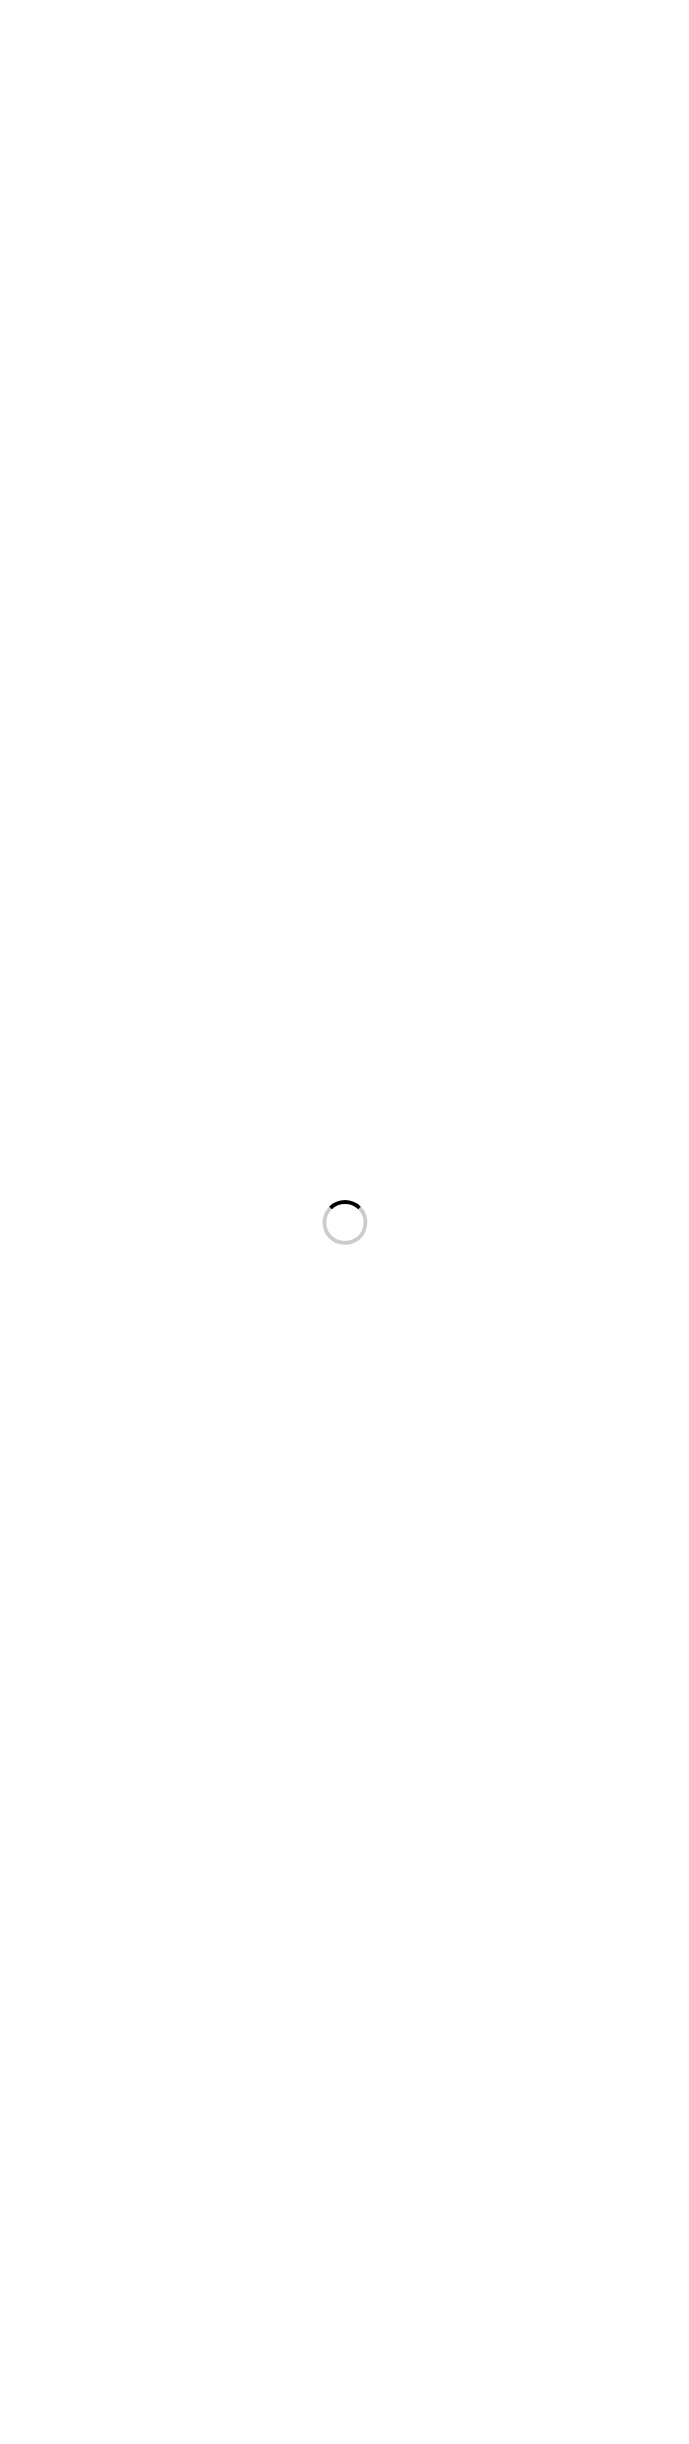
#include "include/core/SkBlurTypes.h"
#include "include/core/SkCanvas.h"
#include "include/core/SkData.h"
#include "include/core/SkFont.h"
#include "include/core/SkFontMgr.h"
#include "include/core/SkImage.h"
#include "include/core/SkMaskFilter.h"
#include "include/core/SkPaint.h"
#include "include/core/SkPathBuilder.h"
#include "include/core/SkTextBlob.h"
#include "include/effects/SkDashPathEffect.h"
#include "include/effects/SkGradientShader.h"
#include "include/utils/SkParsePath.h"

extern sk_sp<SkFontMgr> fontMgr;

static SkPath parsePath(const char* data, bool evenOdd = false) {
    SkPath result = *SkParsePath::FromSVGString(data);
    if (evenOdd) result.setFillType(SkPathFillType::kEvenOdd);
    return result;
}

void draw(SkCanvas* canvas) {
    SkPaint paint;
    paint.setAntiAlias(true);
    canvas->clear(0xFFFFFFFF);
    paint.setStroke(true);
    paint.setStrokeWidth(3.8f);
    paint.setColor(0xFF000000);
    canvas->drawPath(parsePath("M330.5 1208C338.5 1200 351.5 1200 359.5 1208"), paint);
    paint.setColor(0x33000000);
    canvas->drawPath(parsePath("M359.5 1208C364.5 1212.5 366.5 1220 365 1226.5C360.5 1250.5 324.5 1247 324.5 1222.5C324.5 1217 326.5 1212 330.5 1208"), paint);
}
